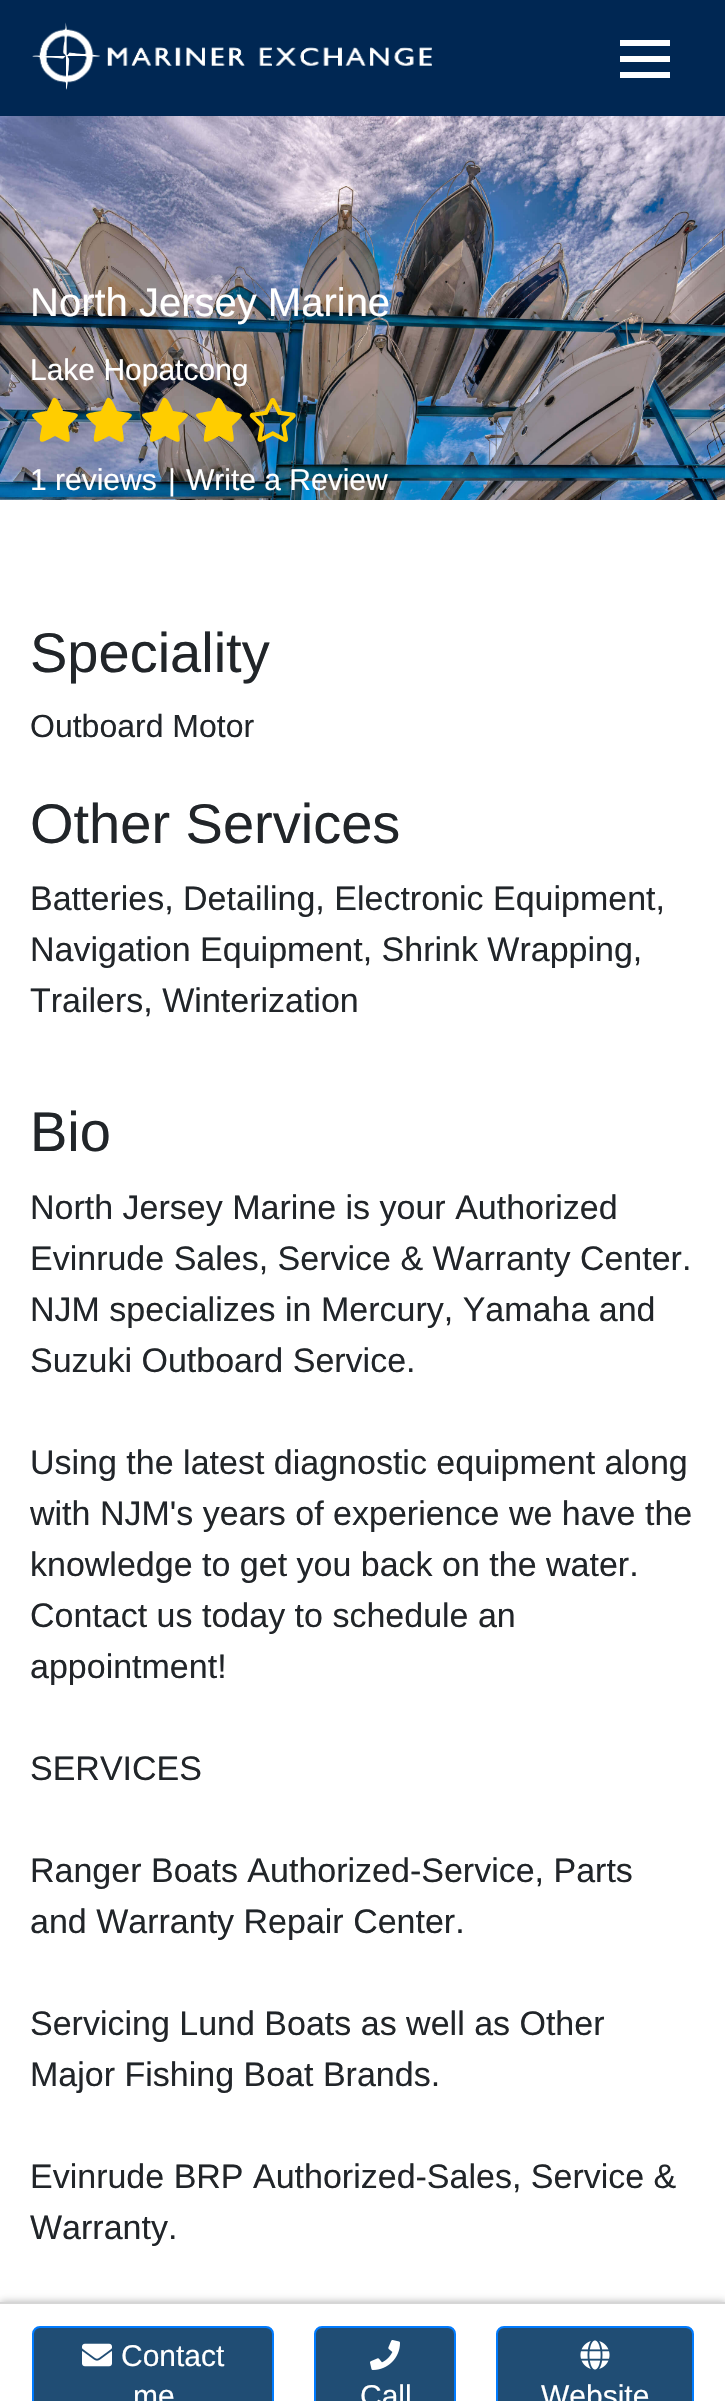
#include "include/core/SkBlurTypes.h"
#include "include/core/SkCanvas.h"
#include "include/core/SkData.h"
#include "include/core/SkFont.h"
#include "include/core/SkFontMgr.h"
#include "include/core/SkImage.h"
#include "include/core/SkMaskFilter.h"
#include "include/core/SkPaint.h"
#include "include/core/SkPathBuilder.h"
#include "include/core/SkTextBlob.h"
#include "include/effects/SkDashPathEffect.h"
#include "include/effects/SkGradientShader.h"
#include "include/utils/SkParsePath.h"

extern sk_sp<SkFontMgr> fontMgr;

static SkFont font(const char* family, int weight, float size, bool italic = false) {
    SkFontStyle style(weight, SkFontStyle::kNormal_Width,
        italic ? SkFontStyle::kItalic_Slant : SkFontStyle::kUpright_Slant);
    SkFont result(fontMgr->matchFamilyStyle(family, style), size);
    result.setSubpixel(true);
    return result;
}

static void drawLabel(SkCanvas* canvas, const char* s, float x, float y, const SkFont& font, SkColor color) {
    SkPaint ink(SkColor4f::FromColor(color));
    ink.setAntiAlias(true);
    canvas->drawString(s, x, y, font, ink);
}

static void fillRect(SkCanvas* canvas, float x, float y, float w, float h, SkColor color) {
    SkPaint ink(SkColor4f::FromColor(color));
    ink.setAntiAlias(true);
    canvas->drawRect(SkRect::MakeXYWH(x, y, w, h), ink);
}

static void drawPhoto(SkCanvas* canvas, const char* path, float x, float y, float w, float h) {
    auto image = SkImages::DeferredFromEncodedData(SkData::MakeFromFileName(path));
    canvas->drawImageRect(image, SkRect::MakeXYWH(x, y, w, h), SkSamplingOptions());
}

static SkPath parsePath(const char* data, bool evenOdd = false) {
    SkPath result = *SkParsePath::FromSVGString(data);
    if (evenOdd) result.setFillType(SkPathFillType::kEvenOdd);
    return result;
}

void draw(SkCanvas* canvas) {
    SkPaint paint;
    paint.setAntiAlias(true);
    canvas->clear(0xFFFFFFFF);
    fillRect(canvas, 0, 0, 725, 116, 0xFF002753);
    drawPhoto(canvas, "assets/img1.png", 32, 22, 400, 68);
    fillRect(canvas, 620, 40, 50, 6, 0xFFFFFFFF);
    fillRect(canvas, 620, 56, 50, 6, 0xFFFFFFFF);
    fillRect(canvas, 620, 72, 50, 6, 0xFFFFFFFF);
    drawPhoto(canvas, "assets/img2.png", 0, 116, 725, 384);
    SkFont font1 = font("Liberation Sans", 400, 40);
    drawLabel(canvas, "North Jersey Marine", 30, 316, font1, 0xFFFFFFFF);
    SkFont font2 = font("Liberation Sans", 400, 30);
    drawLabel(canvas, "Lake Hopatcong", 30, 380, font2, 0xFFFFFFFF);
    paint.setColor(0xFFFFCD00);
    canvas->drawPath(parsePath("M52 400L47 411C28 414 28 413 42 426C38 445 38 445 55 436C72 445 71 445 68 426C82 413 82 414 63 411C62 409 56 392 52 400Z"), paint);
    canvas->drawPath(parsePath("M106 400L101 411C82 414 82 413 96 426C92 445 92 445 109 436C126 445 125 445 122 426C136 413 136 414 117 411C116 409 110 392 106 400Z"), paint);
    canvas->drawPath(parsePath("M162 400L157 411C138 414 138 413 152 426C148 445 148 445 165 436C182 445 181 445 178 426C192 413 192 414 173 411C172 409 166 392 162 400Z"), paint);
    canvas->drawPath(parsePath("M216 400L211 411C192 414 192 413 206 426C202 445 202 445 219 436C236 445 235 445 232 426C246 413 246 414 227 411C226 409 220 392 216 400Z"), paint);
    drawPhoto(canvas, "assets/img3.png", 249, 398, 47, 44);
    drawLabel(canvas, "1 reviews", 30, 490, font2, 0xFFFFFFFF);
    drawLabel(canvas, "|", 168, 490, font2, 0xFFFFFFFF);
    drawLabel(canvas, "Write a Review", 186, 490, font2, 0xFFFFFFFF);
    SkFont font3 = font("Liberation Sans", 400, 56);
    drawLabel(canvas, "Speciality", 30, 672, font3, 0xFF212529);
    SkFont font4 = font("Liberation Sans", 400, 32);
    drawLabel(canvas, "Outboard Motor", 30, 737, font4, 0xFF212529);
    drawLabel(canvas, "Other Services", 30, 843, font3, 0xFF212529);
    SkFont font5 = font("Liberation Sans", 400, 34);
    drawLabel(canvas, "Batteries, Detailing, Electronic Equipment,", 30, 910, font5, 0xFF212529);
    drawLabel(canvas, "Navigation Equipment, Shrink Wrapping,", 30, 961, font5, 0xFF212529);
    drawLabel(canvas, "Trailers, Winterization", 30, 1012, font5, 0xFF212529);
    drawLabel(canvas, "Bio", 30, 1151, font3, 0xFF212529);
    drawLabel(canvas, "North Jersey Marine is your Authorized", 30, 1219, font5, 0xFF212529);
    drawLabel(canvas, "Evinrude Sales, Service & Warranty Center.", 30, 1270, font5, 0xFF212529);
    drawLabel(canvas, "NJM specializes in Mercury, Yamaha and", 30, 1321, font5, 0xFF212529);
    drawLabel(canvas, "Suzuki Outboard Service.", 30, 1372, font5, 0xFF212529);
    drawLabel(canvas, "Using the latest diagnostic equipment along", 30, 1474, font5, 0xFF212529);
    drawLabel(canvas, "with NJM's years of experience we have the", 30, 1525, font5, 0xFF212529);
    drawLabel(canvas, "knowledge to get you back on the water.", 30, 1576, font5, 0xFF212529);
    drawLabel(canvas, "Contact us today to schedule an", 30, 1627, font5, 0xFF212529);
    drawLabel(canvas, "appointment!", 30, 1678, font5, 0xFF212529);
    drawLabel(canvas, "SERVICES", 30, 1780, font5, 0xFF212529);
    drawLabel(canvas, "Ranger Boats Authorized-Service, Parts", 30, 1882, font5, 0xFF212529);
    drawLabel(canvas, "and Warranty Repair Center.", 30, 1933, font5, 0xFF212529);
    drawLabel(canvas, "Servicing Lund Boats as well as Other", 30, 2035, font5, 0xFF212529);
    drawLabel(canvas, "Major Fishing Boat Brands.", 30, 2086, font5, 0xFF212529);
    drawLabel(canvas, "Evinrude BRP Authorized-Sales, Service &", 30, 2188, font5, 0xFF212529);
    drawLabel(canvas, "Warranty.", 30, 2239, font5, 0xFF212529);
    paint.setColor(0x4D000000);
    paint.setMaskFilter(SkMaskFilter::MakeBlur(kNormal_SkBlurStyle, 4));
    canvas->drawRect(SkRect::MakeXYWH(0, 2302, 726, 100), paint);
    paint.setMaskFilter(nullptr);
    fillRect(canvas, 0, 2304, 725, 97, 0xFFFFFFFF);
    fillRect(canvas, 0, 2302, 725, 2, 0xFFD6D6D6);
    paint.setColor(0xFF204D74);
    canvas->drawRoundRect(SkRect::MakeXYWH(33, 2327, 240, 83), 7, 7, paint);
    paint.setStroke(true);
    paint.setStrokeWidth(2);
    paint.setColor(0xFF007BFF);
    canvas->drawRoundRect(SkRect::MakeXYWH(33, 2327, 240, 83), 7, 7, paint);
    drawPhoto(canvas, "assets/img4.png", 82, 2343, 30, 24);
    drawLabel(canvas, "Contact", 121, 2366, font2, 0xFFFFFFFF);
    drawLabel(canvas, "me", 133, 2406, font2, 0xFFFFFFFF);
    paint.setStroke(false);
    paint.setColor(0xFF204D74);
    canvas->drawRoundRect(SkRect::MakeXYWH(315, 2327, 140, 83), 7, 7, paint);
    paint.setStroke(true);
    paint.setColor(0xFF007BFF);
    canvas->drawRoundRect(SkRect::MakeXYWH(315, 2327, 140, 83), 7, 7, paint);
    drawPhoto(canvas, "assets/img5.png", 370, 2340, 30, 30);
    drawLabel(canvas, "Call", 360, 2406, font2, 0xFFFFFFFF);
    paint.setStroke(false);
    paint.setColor(0xFF204D74);
    canvas->drawRoundRect(SkRect::MakeXYWH(497, 2327, 196, 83), 7, 7, paint);
    paint.setStroke(true);
    paint.setColor(0xFF007BFF);
    canvas->drawRoundRect(SkRect::MakeXYWH(497, 2327, 196, 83), 7, 7, paint);
    drawPhoto(canvas, "assets/img6.png", 580, 2340, 30, 30);
    drawLabel(canvas, "Website", 541, 2406, font2, 0xFFFFFFFF);
}
